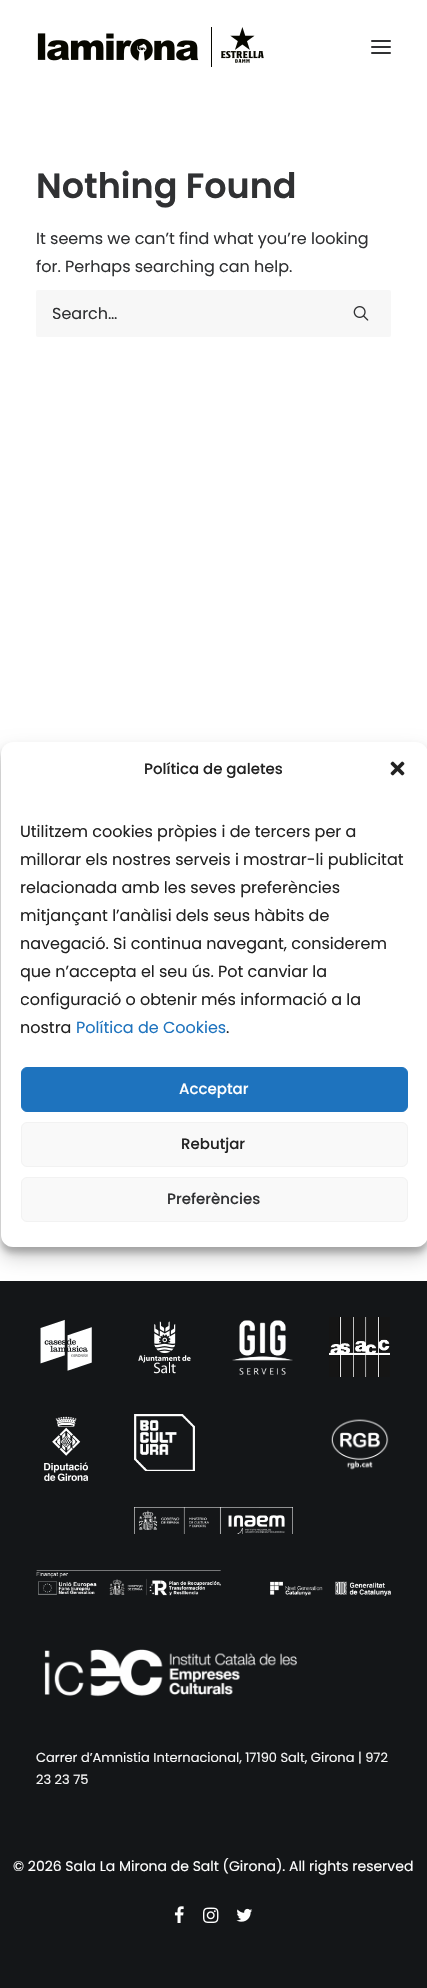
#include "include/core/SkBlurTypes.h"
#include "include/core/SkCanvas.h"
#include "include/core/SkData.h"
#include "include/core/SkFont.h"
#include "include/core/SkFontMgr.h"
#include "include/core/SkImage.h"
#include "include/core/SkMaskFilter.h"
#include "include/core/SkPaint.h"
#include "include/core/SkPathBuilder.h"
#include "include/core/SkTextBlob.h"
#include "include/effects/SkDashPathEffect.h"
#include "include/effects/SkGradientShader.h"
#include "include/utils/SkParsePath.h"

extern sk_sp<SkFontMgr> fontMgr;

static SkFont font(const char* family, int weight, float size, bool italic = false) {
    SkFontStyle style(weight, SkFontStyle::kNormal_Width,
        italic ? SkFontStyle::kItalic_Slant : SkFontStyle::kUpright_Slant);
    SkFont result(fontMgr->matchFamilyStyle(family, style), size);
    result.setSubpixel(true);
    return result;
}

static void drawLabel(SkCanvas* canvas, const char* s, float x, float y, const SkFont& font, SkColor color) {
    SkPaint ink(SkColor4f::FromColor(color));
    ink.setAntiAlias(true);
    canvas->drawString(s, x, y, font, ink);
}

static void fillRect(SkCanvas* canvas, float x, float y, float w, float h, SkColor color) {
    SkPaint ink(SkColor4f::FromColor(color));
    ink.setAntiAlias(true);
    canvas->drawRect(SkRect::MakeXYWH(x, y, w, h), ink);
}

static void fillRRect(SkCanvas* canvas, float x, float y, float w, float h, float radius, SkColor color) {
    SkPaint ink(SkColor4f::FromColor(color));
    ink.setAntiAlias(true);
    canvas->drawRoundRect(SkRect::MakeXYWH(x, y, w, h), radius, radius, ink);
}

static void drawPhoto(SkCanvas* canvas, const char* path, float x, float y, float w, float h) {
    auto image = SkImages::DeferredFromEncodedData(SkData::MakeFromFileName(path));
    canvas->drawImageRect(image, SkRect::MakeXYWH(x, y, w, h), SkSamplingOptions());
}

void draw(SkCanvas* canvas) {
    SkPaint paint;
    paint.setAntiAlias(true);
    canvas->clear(0xFFFFFFFF);
    drawPhoto(canvas, "assets/img1.png", 37, 27, 227, 40);
    fillRRect(canvas, 371, 46, 20, 2, 1, 0xFF303133);
    fillRRect(canvas, 371, 40, 20, 2, 1, 0xFF303133);
    fillRRect(canvas, 371, 52, 20, 2, 1, 0xFF303133);
    SkFont font1 = font("Poppins", 600, 35);
    drawLabel(canvas, "Nothing Found", 36, 198, font1, 0xFF303133);
    SkFont font2 = font("Poppins", 400, 16);
    drawLabel(canvas, "It seems we can’t find what you’re looking", 36, 244, font2, 0xFF303133);
    drawLabel(canvas, "for. Perhaps searching can help.", 36, 272, font2, 0xFF303133);
    fillRRect(canvas, 36, 290, 355, 47, 2, 0xFFF7F7F7);
    drawLabel(canvas, "Search…", 52, 319, font2, 0xFF303133);
    drawPhoto(canvas, "assets/img2.png", 353, 306, 16, 15);
    fillRect(canvas, 0, 1281, 427, 707, 0xFF141618);
    drawPhoto(canvas, "assets/img3.png", 40, 1319, 52, 52);
    drawPhoto(canvas, "assets/img4.png", 138, 1321, 53, 53);
    drawPhoto(canvas, "assets/img5.png", 232, 1320, 61, 55);
    drawPhoto(canvas, "assets/img6.png", 329, 1317, 61, 60);
    drawPhoto(canvas, "assets/img7.png", 44, 1416, 44, 65);
    drawPhoto(canvas, "assets/img8.png", 134, 1414, 61, 57);
    drawPhoto(canvas, "assets/img9.png", 331, 1419, 58, 51);
    drawPhoto(canvas, "assets/img10.png", 134, 1507, 159, 27);
    drawPhoto(canvas, "assets/img11.png", 36, 1570, 355, 26);
    drawPhoto(canvas, "assets/img12.png", 44, 1649, 253, 48);
    SkFont font3 = font("Poppins", 400, 13);
    drawLabel(canvas, "Carrer d’Amnistia Internacional, 17190 Salt, Girona | 972", 36, 1762, font3, 0xFFF7F7F7);
    drawLabel(canvas, "23 23 75", 36, 1784, font3, 0xFFF7F7F7);
    SkFont font4 = font("Poppins", 400, 14);
    drawLabel(canvas, "© 2026 Sala La Mirona de Salt (Girona). All rights reserved", 13, 1871, font4, 0xFFFFFFFF);
    drawPhoto(canvas, "assets/img13.png", 174, 1906, 10, 17);
    drawPhoto(canvas, "assets/img14.png", 203, 1907, 16, 16);
    drawPhoto(canvas, "assets/img15.png", 236, 1908, 17, 14);
    paint.setColor(0x3B000000);
    paint.setMaskFilter(SkMaskFilter::MakeBlur(kNormal_SkBlurStyle, 3));
    canvas->drawRoundRect(SkRect::MakeXYWH(1, 748, 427, 505), 12, 12, paint);
    paint.setMaskFilter(nullptr);
    paint.setColor(0x30000000);
    paint.setMaskFilter(SkMaskFilter::MakeBlur(kNormal_SkBlurStyle, 10));
    canvas->drawRoundRect(SkRect::MakeXYWH(1, 752, 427, 505), 12, 12, paint);
    paint.setMaskFilter(nullptr);
    fillRRect(canvas, 1, 742, 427, 505, 12, 0xFFFFFFFF);
    SkFont font5 = font("Poppins", 500, 15);
    drawLabel(canvas, "Política de galetes", 144, 774, font5, 0xFF222222);
    drawPhoto(canvas, "assets/img16.png", 390, 761, 15, 15);
    drawLabel(canvas, "Utilitzem cookies pròpies i de tercers per a", 20, 837, font2, 0xFF222222);
    drawLabel(canvas, "millorar els nostres serveis i mostrar-li publicitat", 20, 865, font2, 0xFF222222);
    drawLabel(canvas, "relacionada amb les seves preferències", 20, 893, font2, 0xFF222222);
    drawLabel(canvas, "mitjançant l’anàlisi dels seus hàbits de", 20, 921, font2, 0xFF222222);
    drawLabel(canvas, "navegació. Si continua navegant, considerem", 20, 949, font2, 0xFF222222);
    canvas->save();
    canvas->clipRect(SkRect::MakeXYWH(21, 800, 387, 247));
    drawLabel(canvas, "que n’accepta el seu ús. Pot canviar la", 20, 977, font2, 0xFF222222);
    drawLabel(canvas, "configuració o obtenir més informació a la", 20, 1005, font2, 0xFF222222);
    canvas->restore();
    drawLabel(canvas, "nostra", 20, 1033, font2, 0xFF222222);
    drawLabel(canvas, "Política de Cookies", 76, 1033, font2, 0xFF1E73BE);
    drawLabel(canvas, ".", 226, 1033, font2, 0xFF222222);
    paint.setColor(0xFF1E73BE);
    canvas->drawRoundRect(SkRect::MakeXYWH(21.5f, 1067.5f, 386, 44), 5.5f, 5.5f, paint);
    paint.setStroke(true);
    paint.setStrokeWidth(1);
    canvas->drawRoundRect(SkRect::MakeXYWH(21.5f, 1067.5f, 386, 44), 5.5f, 5.5f, paint);
    drawLabel(canvas, "Acceptar", 179, 1094, font5, 0xFFFFFFFF);
    paint.setStroke(false);
    paint.setColor(0xFFF9F9F9);
    canvas->drawRoundRect(SkRect::MakeXYWH(21.5f, 1122.5f, 386, 44), 5.5f, 5.5f, paint);
    paint.setStroke(true);
    paint.setColor(0xFFF2F2F2);
    canvas->drawRoundRect(SkRect::MakeXYWH(21.5f, 1122.5f, 386, 44), 5.5f, 5.5f, paint);
    drawLabel(canvas, "Rebutjar", 181, 1149, font5, 0xFF222222);
    paint.setStroke(false);
    paint.setColor(0xFFF9F9F9);
    canvas->drawRoundRect(SkRect::MakeXYWH(21.5f, 1177.5f, 386, 44), 5.5f, 5.5f, paint);
    paint.setStroke(true);
    paint.setColor(0xFFF2F2F2);
    canvas->drawRoundRect(SkRect::MakeXYWH(21.5f, 1177.5f, 386, 44), 5.5f, 5.5f, paint);
    drawLabel(canvas, "Preferències", 167, 1204, font5, 0xFF303133);
}
